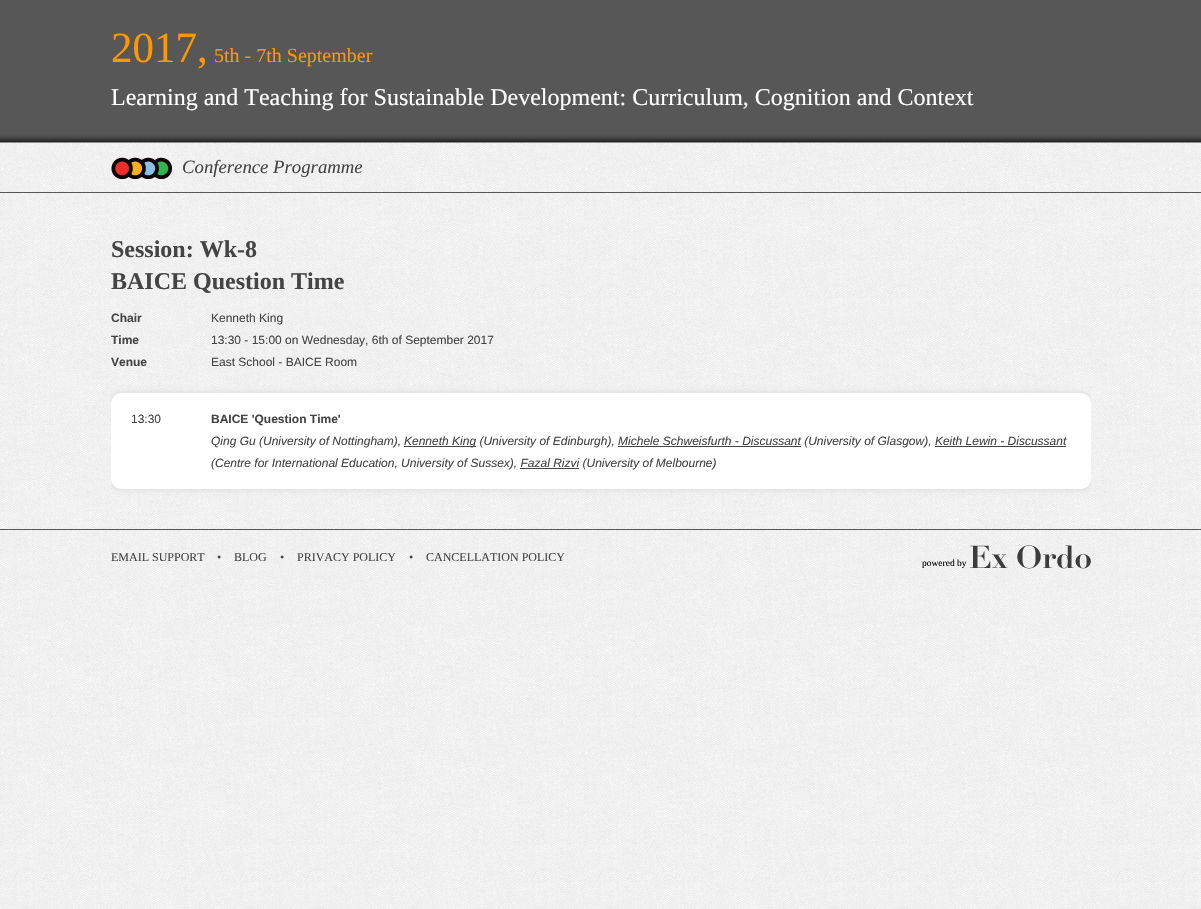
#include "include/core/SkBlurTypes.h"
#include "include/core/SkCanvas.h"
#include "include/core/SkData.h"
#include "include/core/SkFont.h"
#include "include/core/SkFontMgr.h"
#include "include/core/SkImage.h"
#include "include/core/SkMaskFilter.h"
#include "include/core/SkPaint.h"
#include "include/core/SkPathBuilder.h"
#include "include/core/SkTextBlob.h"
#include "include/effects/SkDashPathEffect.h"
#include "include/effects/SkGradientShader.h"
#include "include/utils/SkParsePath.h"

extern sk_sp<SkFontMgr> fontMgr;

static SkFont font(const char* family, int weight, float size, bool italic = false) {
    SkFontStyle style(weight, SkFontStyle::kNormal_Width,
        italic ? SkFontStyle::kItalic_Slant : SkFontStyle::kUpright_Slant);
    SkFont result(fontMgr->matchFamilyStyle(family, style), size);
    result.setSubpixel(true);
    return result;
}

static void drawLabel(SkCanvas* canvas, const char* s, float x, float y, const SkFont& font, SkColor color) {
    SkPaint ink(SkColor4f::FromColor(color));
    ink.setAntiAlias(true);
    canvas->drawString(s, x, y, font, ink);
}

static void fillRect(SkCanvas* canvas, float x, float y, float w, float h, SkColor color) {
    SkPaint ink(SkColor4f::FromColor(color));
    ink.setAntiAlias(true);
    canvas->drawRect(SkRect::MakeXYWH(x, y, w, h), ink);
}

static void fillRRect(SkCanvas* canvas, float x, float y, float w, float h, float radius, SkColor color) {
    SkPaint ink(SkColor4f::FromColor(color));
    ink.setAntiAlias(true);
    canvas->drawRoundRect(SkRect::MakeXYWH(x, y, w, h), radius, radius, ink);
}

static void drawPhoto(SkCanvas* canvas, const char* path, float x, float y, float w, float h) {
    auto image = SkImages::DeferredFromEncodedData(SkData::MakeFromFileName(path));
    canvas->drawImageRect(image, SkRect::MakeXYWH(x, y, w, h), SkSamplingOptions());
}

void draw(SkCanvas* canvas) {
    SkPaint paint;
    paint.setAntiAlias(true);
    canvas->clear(0xFFFFFFFF);
    drawPhoto(canvas, "assets/img1.png", 0, 143, 1201, 766);
    drawPhoto(canvas, "assets/img2.png", 0, 0, 1201, 143);
    fillRect(canvas, 0, 192, 1201, 1, 0xFF575757);
    SkFont font1 = font("Liberation Serif", 400, 43);
    drawLabel(canvas, "2017,", 111, 62, font1, 0xFFFF9800);
    SkFont font2 = font("Liberation Serif", 400, 20);
    drawLabel(canvas, "5th - 7th September", 214, 62, font2, 0xFFFF9800);
    SkFont font3 = font("Liberation Serif", 400, 24);
    drawLabel(canvas, "Learning and Teaching for Sustainable Development: Curriculum, Cognition and Context", 111, 105, font3, 0xFFFFFFFF);
    drawPhoto(canvas, "assets/img3.png", 111, 157, 61, 22);
    SkFont font4 = font("Liberation Serif", 400, 18.75f, true);
    drawLabel(canvas, "Conference Programme", 182, 173, font4, 0xFF444444);
    SkFont font5 = font("Liberation Serif", 700, 24);
    drawLabel(canvas, "Session: Wk-8", 111, 257, font5, 0xFF444444);
    drawLabel(canvas, "BAICE Question Time", 111, 289, font5, 0xFF444444);
    SkFont font6 = font("Liberation Sans", 700, 12);
    drawLabel(canvas, "Chair", 111, 322, font6, 0xFF444444);
    SkFont font7 = font("Liberation Sans", 400, 12);
    drawLabel(canvas, "Kenneth King", 211, 322, font7, 0xFF444444);
    drawLabel(canvas, "Time", 111, 344, font6, 0xFF444444);
    drawLabel(canvas, "13:30 - 15:00 on Wednesday, 6th of September 2017", 211, 344, font7, 0xFF444444);
    drawLabel(canvas, "Venue", 111, 366, font6, 0xFF444444);
    drawLabel(canvas, "East School - BAICE Room", 211, 366, font7, 0xFF444444);
    canvas->save();
    canvas->clipRect(SkRect::MakeXYWH(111, 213, 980, 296));
    paint.setColor(0xFFD5D5D5);
    paint.setMaskFilter(SkMaskFilter::MakeBlur(kNormal_SkBlurStyle, 3));
    canvas->drawRoundRect(SkRect::MakeXYWH(111, 393, 980, 96), 10, 10, paint);
    paint.setMaskFilter(nullptr);
    canvas->restore();
    fillRRect(canvas, 111, 393, 980, 96, 10, 0xFFFFFFFF);
    drawLabel(canvas, "13:30", 131, 423, font7, 0xFF444444);
    drawLabel(canvas, "BAICE 'Question Time'", 211, 423, font6, 0xFF444444);
    SkFont font8 = font("Liberation Sans", 400, 12, true);
    drawLabel(canvas, "Qing Gu (University of Nottingham),", 211, 445, font8, 0xFF444444);
    fillRect(canvas, 404, 446, 72, 1, 0xFF444444);
    drawLabel(canvas, "Kenneth King (University of Edinburgh), Michele Schweisfurth - Discussant (University of Glasgow), Keith Lewin - Discussant", 404, 445, font8, 0xFF444444);
    fillRect(canvas, 618, 446, 183, 1, 0xFF444444);
    fillRect(canvas, 935, 446, 131, 1, 0xFF444444);
    drawLabel(canvas, "(Centre for International Education, University of Sussex), Fazal Rizvi (University of Melbourne)", 211, 467, font8, 0xFF444444);
    fillRect(canvas, 520, 468, 59, 1, 0xFF444444);
    fillRect(canvas, 0, 529, 1201, 1, 0xFF575757);
    SkFont font9 = font("Liberation Serif", 400, 12);
    drawLabel(canvas, "EMAIL SUPPORT", 111, 561, font9, 0xFF444444);
    drawLabel(canvas, "•", 217, 561, font9, 0xFF444444);
    drawLabel(canvas, "BLOG", 234, 561, font9, 0xFF444444);
    drawLabel(canvas, "•", 280, 561, font9, 0xFF444444);
    drawLabel(canvas, "PRIVACY POLICY", 297, 561, font9, 0xFF444444);
    drawLabel(canvas, "•", 409, 561, font9, 0xFF444444);
    drawLabel(canvas, "CANCELLATION POLICY", 426, 561, font9, 0xFF444444);
    SkFont font10 = font("Liberation Serif", 400, 9.5f);
    drawLabel(canvas, "powered by", 922, 566, font10, 0xFF000000);
    drawPhoto(canvas, "assets/img4.png", 970, 545, 121, 24);
}
